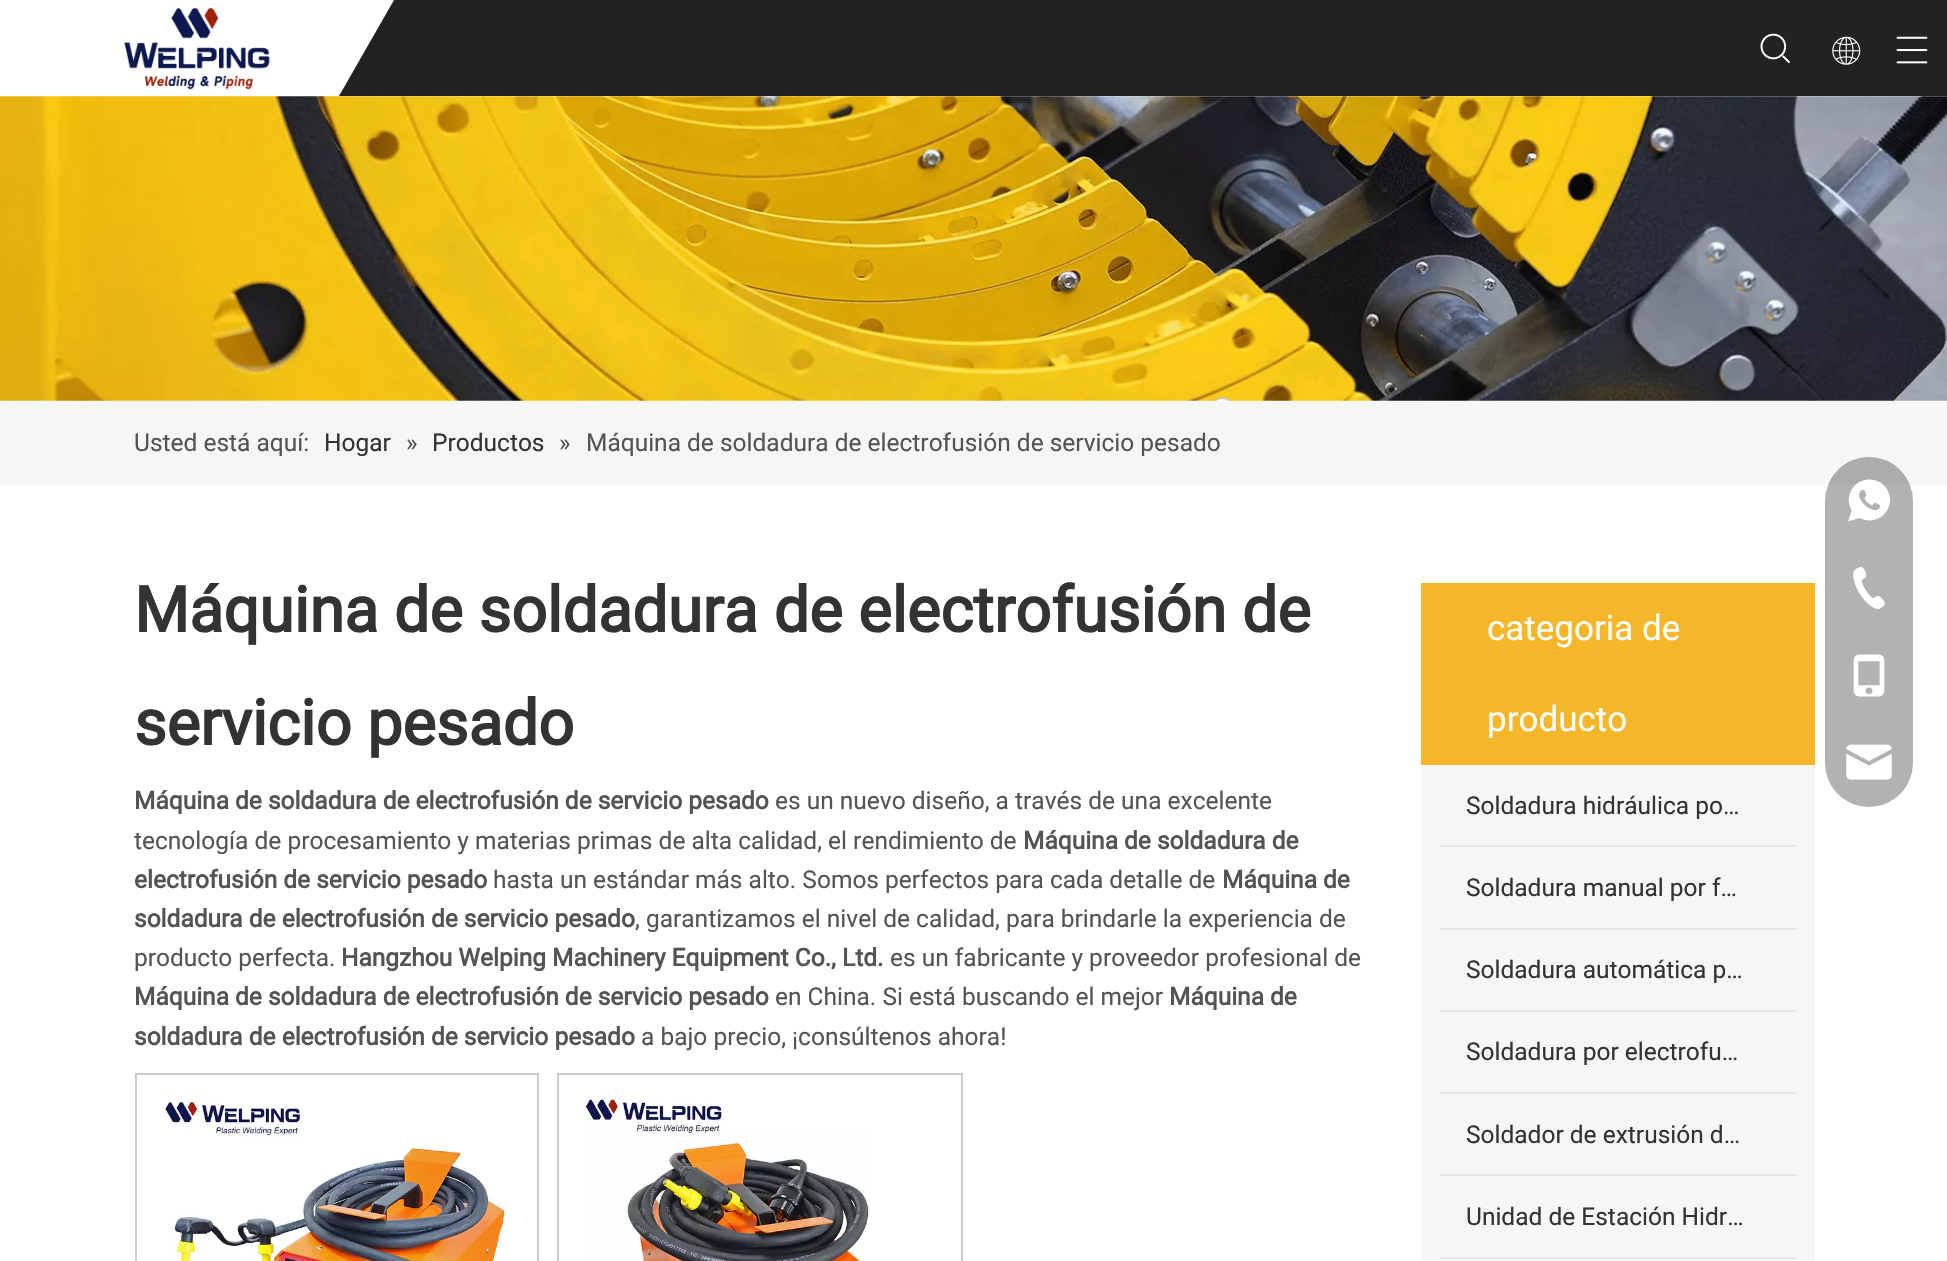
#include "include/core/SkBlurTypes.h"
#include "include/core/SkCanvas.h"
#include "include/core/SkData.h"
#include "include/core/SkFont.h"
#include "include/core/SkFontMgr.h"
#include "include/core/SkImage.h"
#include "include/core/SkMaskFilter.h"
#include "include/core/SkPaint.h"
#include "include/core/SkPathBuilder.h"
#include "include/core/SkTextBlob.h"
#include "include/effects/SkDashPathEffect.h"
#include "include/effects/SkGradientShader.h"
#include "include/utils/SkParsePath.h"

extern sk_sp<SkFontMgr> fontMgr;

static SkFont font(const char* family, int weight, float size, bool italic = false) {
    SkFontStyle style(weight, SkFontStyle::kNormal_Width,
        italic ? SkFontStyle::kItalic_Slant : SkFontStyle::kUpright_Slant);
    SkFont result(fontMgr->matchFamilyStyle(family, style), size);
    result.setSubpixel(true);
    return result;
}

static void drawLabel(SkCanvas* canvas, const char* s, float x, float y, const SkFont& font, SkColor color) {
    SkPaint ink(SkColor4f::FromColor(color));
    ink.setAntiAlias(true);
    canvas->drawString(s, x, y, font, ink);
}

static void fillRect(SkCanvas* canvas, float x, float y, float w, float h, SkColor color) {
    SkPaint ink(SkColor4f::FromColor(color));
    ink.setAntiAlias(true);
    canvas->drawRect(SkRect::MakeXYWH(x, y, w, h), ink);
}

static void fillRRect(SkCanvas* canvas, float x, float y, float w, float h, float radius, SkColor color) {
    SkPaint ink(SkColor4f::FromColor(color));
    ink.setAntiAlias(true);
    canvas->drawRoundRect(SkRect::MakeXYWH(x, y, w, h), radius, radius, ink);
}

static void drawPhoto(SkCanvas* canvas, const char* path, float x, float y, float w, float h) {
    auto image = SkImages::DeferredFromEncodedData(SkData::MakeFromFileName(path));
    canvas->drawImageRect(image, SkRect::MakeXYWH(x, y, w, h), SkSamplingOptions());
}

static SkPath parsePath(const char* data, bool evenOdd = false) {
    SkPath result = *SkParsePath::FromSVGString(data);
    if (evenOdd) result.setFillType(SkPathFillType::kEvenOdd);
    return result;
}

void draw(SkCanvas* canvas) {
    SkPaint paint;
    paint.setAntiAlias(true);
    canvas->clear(0xFFFFFFFF);
    fillRect(canvas, 339, 0, 1608, 96, 0xFF222222);
    paint.setColor(0xFFFFFFFF);
    canvas->drawPath(parsePath("M0 0V96H339L394 0Z"), paint);
    drawPhoto(canvas, "assets/img1.png", 124, 7, 146, 83);
    drawPhoto(canvas, "assets/img2.png", 1760, 33, 30, 31);
    drawPhoto(canvas, "assets/img3.png", 1832, 36, 29, 29);
    drawPhoto(canvas, "assets/img4.png", 1896, 36, 32, 28);
    drawPhoto(canvas, "assets/img5.png", 0, 96, 1947, 305);
    fillRect(canvas, 0, 401, 1947, 84, 0xFFF6F6F6);
    SkFont font1 = font("Roboto", 400, 24.5f);
    drawLabel(canvas, "Usted está aquí:", 134, 451, font1, 0xFF545454);
    drawLabel(canvas, "Hogar", 324, 451, font1, 0xFF333333);
    drawLabel(canvas, "»", 406, 451, font1, 0xFF545454);
    drawLabel(canvas, "Productos", 432, 451, font1, 0xFF333333);
    drawLabel(canvas, "»", 559, 451, font1, 0xFF545454);
    drawLabel(canvas, "Máquina de soldadura de electrofusión de servicio pesado", 586, 451, font1, 0xFF545454);
    SkFont font2 = font("Roboto", 700, 63);
    drawLabel(canvas, "Máquina de soldadura de electrofusión de", 134, 632, font2, 0xFF333333);
    drawLabel(canvas, "servicio pesado", 134, 745, font2, 0xFF333333);
    SkFont font3 = font("Roboto", 700, 24.5f);
    drawLabel(canvas, "Máquina de soldadura de electrofusión de servicio pesado", 134, 809, font3, 0xFF545454);
    drawLabel(canvas, "es un nuevo diseño, a través de una excelente", 775, 809, font1, 0xFF545454);
    drawLabel(canvas, "tecnología de procesamiento y materias primas de alta calidad, el rendimiento de", 134, 849, font1, 0xFF545454);
    drawLabel(canvas, "Máquina de soldadura de", 1023, 849, font3, 0xFF545454);
    drawLabel(canvas, "electrofusión de servicio pesado", 134, 888, font3, 0xFF545454);
    drawLabel(canvas, "hasta un estándar más alto. Somos perfectos para cada detalle de", 493, 888, font1, 0xFF545454);
    drawLabel(canvas, "Máquina de", 1222, 888, font3, 0xFF545454);
    drawLabel(canvas, "soldadura de electrofusión de servicio pesado", 134, 927, font3, 0xFF545454);
    drawLabel(canvas, ", garantizamos el nivel de calidad, para brindarle la experiencia de", 635, 927, font1, 0xFF545454);
    drawLabel(canvas, "producto perfecta.", 134, 966, font1, 0xFF545454);
    drawLabel(canvas, "Hangzhou Welping Machinery Equipment Co., Ltd.", 341, 966, font3, 0xFF545454);
    drawLabel(canvas, "es un fabricante y proveedor profesional de", 890, 966, font1, 0xFF545454);
    drawLabel(canvas, "Máquina de soldadura de electrofusión de servicio pesado", 134, 1005, font3, 0xFF545454);
    drawLabel(canvas, "en China. Si está buscando el mejor", 775, 1005, font1, 0xFF545454);
    drawLabel(canvas, "Máquina de", 1169, 1005, font3, 0xFF545454);
    drawLabel(canvas, "soldadura de electrofusión de servicio pesado", 134, 1045, font3, 0xFF545454);
    drawLabel(canvas, "a bajo precio, ¡consúltenos ahora!", 641, 1045, font1, 0xFF545454);
    paint.setStroke(true);
    paint.setStrokeWidth(2);
    paint.setColor(0xFFCCCCCC);
    canvas->drawRect(SkRect::MakeXYWH(136, 1074, 402, 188), paint);
    drawPhoto(canvas, "assets/img6.png", 164, 1100, 341, 161);
    canvas->drawRect(SkRect::MakeXYWH(558, 1074, 404, 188), paint);
    drawPhoto(canvas, "assets/img7.png", 585, 1097, 285, 164);
    fillRect(canvas, 1421, 765, 394, 496, 0xFFF6F6F6);
    fillRect(canvas, 1421, 583, 394, 182, 0xFFF5B62A);
    SkFont font4 = font("Roboto", 400, 35);
    drawLabel(canvas, "categoria de", 1487, 640, font4, 0xFFFFFFFF);
    drawLabel(canvas, "producto", 1487, 731, font4, 0xFFFFFFFF);
    drawLabel(canvas, "Soldadura hidráulica po…", 1466, 814, font1, 0xFF333333);
    fillRect(canvas, 1439, 845, 358, 2, 0xFFE7E7E7);
    drawLabel(canvas, "Soldadura manual por f…", 1466, 896, font1, 0xFF333333);
    fillRect(canvas, 1439, 928, 358, 2, 0xFFE7E7E7);
    drawLabel(canvas, "Soldadura automática p…", 1466, 978, font1, 0xFF333333);
    fillRect(canvas, 1439, 1010, 358, 2, 0xFFE7E7E7);
    drawLabel(canvas, "Soldadura por electrofu…", 1466, 1060, font1, 0xFF333333);
    fillRect(canvas, 1439, 1092, 358, 2, 0xFFE7E7E7);
    drawLabel(canvas, "Soldador de extrusión d…", 1466, 1143, font1, 0xFF333333);
    fillRect(canvas, 1439, 1174, 358, 2, 0xFFE7E7E7);
    drawLabel(canvas, "Unidad de Estación Hidr…", 1466, 1225, font1, 0xFF333333);
    fillRect(canvas, 1439, 1257, 358, 2, 0xFFE7E7E7);
    fillRRect(canvas, 1825, 457, 88, 350, 44, 0x4D000000);
    drawPhoto(canvas, "assets/img8.png", 1848, 479, 42, 43);
    drawPhoto(canvas, "assets/img9.png", 1853, 567, 32, 42);
    drawPhoto(canvas, "assets/img10.png", 1853, 654, 32, 43);
    drawPhoto(canvas, "assets/img11.png", 1846, 744, 46, 36);
}
